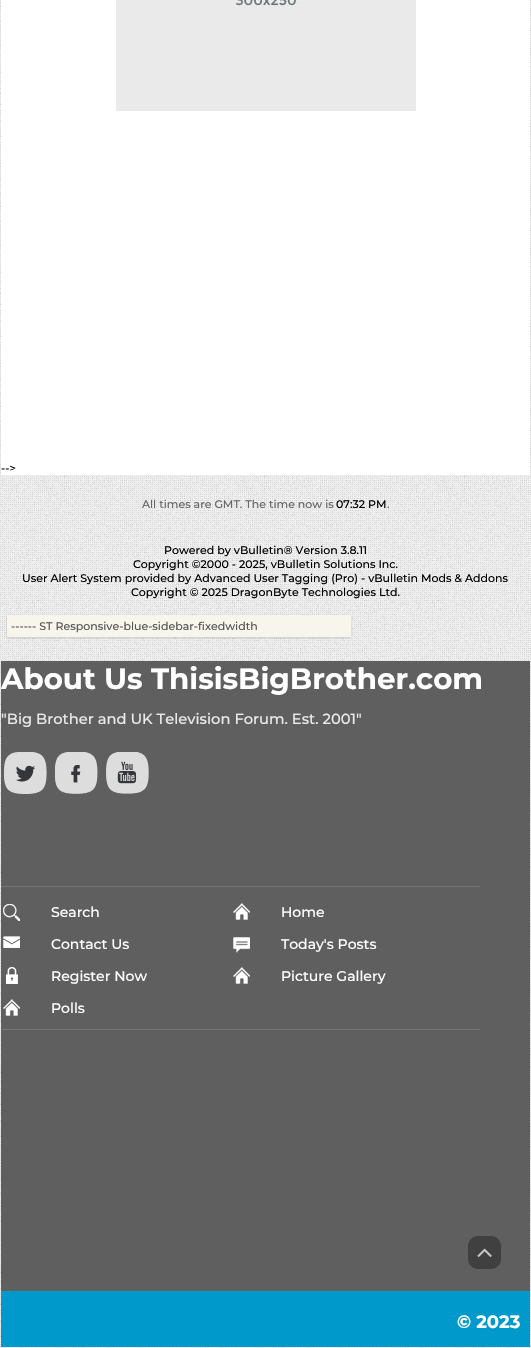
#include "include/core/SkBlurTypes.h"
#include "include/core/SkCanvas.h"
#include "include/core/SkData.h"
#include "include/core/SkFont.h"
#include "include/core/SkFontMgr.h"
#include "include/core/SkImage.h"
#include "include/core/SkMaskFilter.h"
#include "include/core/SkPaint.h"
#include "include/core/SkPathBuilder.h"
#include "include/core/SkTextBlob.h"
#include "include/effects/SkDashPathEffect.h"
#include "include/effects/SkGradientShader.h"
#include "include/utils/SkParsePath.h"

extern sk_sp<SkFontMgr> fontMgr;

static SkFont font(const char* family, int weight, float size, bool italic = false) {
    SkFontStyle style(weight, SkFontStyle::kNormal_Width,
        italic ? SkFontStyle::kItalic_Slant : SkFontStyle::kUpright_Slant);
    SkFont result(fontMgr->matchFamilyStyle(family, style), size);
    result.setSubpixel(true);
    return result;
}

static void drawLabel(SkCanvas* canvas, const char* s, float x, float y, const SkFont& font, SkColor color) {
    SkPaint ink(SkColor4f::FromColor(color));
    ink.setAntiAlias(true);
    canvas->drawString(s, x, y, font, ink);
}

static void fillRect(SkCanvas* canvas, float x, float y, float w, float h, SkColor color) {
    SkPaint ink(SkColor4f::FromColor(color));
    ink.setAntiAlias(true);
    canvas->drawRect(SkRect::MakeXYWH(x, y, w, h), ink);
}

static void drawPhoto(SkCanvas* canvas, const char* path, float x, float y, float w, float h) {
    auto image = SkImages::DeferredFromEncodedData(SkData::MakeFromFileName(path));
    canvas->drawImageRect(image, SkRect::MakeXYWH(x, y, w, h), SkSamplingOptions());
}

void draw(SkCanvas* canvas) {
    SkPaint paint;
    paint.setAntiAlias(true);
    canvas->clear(0xFFFFFFFF);
    drawPhoto(canvas, "assets/img1.png", 0, 0, 531, 1348);
    fillRect(canvas, 1, 0, 529, 475, 0xFFFFFFFF);
    drawPhoto(canvas, "assets/img2.png", 116, 0, 300, 111);
    SkFont font1 = font("Montserrat", 500, 11);
    drawLabel(canvas, "-->", 1, 472, font1, 0xFF000000);
    drawLabel(canvas, "All times are GMT. The time now is", 142, 508, font1, 0xFF666666);
    drawLabel(canvas, "07:32 PM", 336, 508, font1, 0xFF000000);
    drawLabel(canvas, ".", 387, 508, font1, 0xFF666666);
    drawLabel(canvas, "Powered by vBulletin® Version 3.8.11", 164, 554, font1, 0xFF000000);
    drawLabel(canvas, "Copyright ©2000 - 2025, vBulletin Solutions Inc.", 133, 568, font1, 0xFF000000);
    drawLabel(canvas, "User Alert System provided by Advanced User Tagging (Pro) - vBulletin Mods & Addons", 22, 582, font1, 0xFF000000);
    drawLabel(canvas, "Copyright © 2025 DragonByte Technologies Ltd.", 131, 596, font1, 0xFF000000);
    paint.setColor(0x29000000);
    paint.setMaskFilter(SkMaskFilter::MakeBlur(kNormal_SkBlurStyle, 1));
    canvas->drawRect(SkRect::MakeXYWH(7, 616, 344, 22), paint);
    paint.setMaskFilter(nullptr);
    fillRect(canvas, 7, 615, 344, 22, 0xFFF7F5EC);
    drawLabel(canvas, "------ ST Responsive-blue-sidebar-fixedwidth", 11, 630, font1, 0xFF555555);
    fillRect(canvas, 1, 661, 529, 630, 0xFF5F5F5F);
    SkFont font2 = font("Montserrat", 700, 29.3f);
    drawLabel(canvas, "About Us ThisisBigBrother.com", 1, 689, font2, 0xFFFFFFFF);
    SkFont font3 = font("Montserrat", 500, 14.7f);
    drawLabel(canvas, "\"Big Brother and UK Television Forum. Est. 2001\"", 1, 724, font3, 0xFFEAEAEA);
    drawPhoto(canvas, "assets/img3.png", 4, 752, 43, 42);
    drawPhoto(canvas, "assets/img4.png", 55, 752, 43, 42);
    drawPhoto(canvas, "assets/img5.png", 106, 752, 43, 42);
    drawPhoto(canvas, "assets/img6.png", 468, 1236, 33, 33);
    fillRect(canvas, 1, 886, 479, 1, 0xFF737373);
    fillRect(canvas, 1, 1029, 479, 1, 0xFF737373);
    drawPhoto(canvas, "assets/img7.png", 3, 904, 17, 17);
    SkFont font4 = font("Montserrat", 500, 14);
    drawLabel(canvas, "Search", 51, 917, font4, 0xFFFFFFFF);
    drawPhoto(canvas, "assets/img8.png", 233, 903, 17, 17);
    drawLabel(canvas, "Home", 281, 917, font4, 0xFFFFFFFF);
    drawPhoto(canvas, "assets/img9.png", 3, 936, 17, 12);
    drawLabel(canvas, "Contact Us", 51, 949, font4, 0xFFFFFFFF);
    drawPhoto(canvas, "assets/img10.png", 233, 937, 17, 16);
    drawLabel(canvas, "Today's Posts", 281, 949, font4, 0xFFFFFFFF);
    drawPhoto(canvas, "assets/img11.png", 6, 967, 12, 17);
    drawLabel(canvas, "Register Now", 51, 981, font4, 0xFFFFFFFF);
    drawPhoto(canvas, "assets/img8.png", 233, 967, 17, 17);
    drawLabel(canvas, "Picture Gallery", 281, 981, font4, 0xFFFFFFFF);
    drawPhoto(canvas, "assets/img8.png", 3, 999, 17, 17);
    drawLabel(canvas, "Polls", 51, 1013, font4, 0xFFFFFFFF);
    fillRect(canvas, 1, 1291, 529, 56, 0xFF0099CC);
    SkFont font5 = font("Montserrat", 700, 18);
    drawLabel(canvas, "© 2023", 457, 1328, font5, 0xFFFFFFFF);
}
